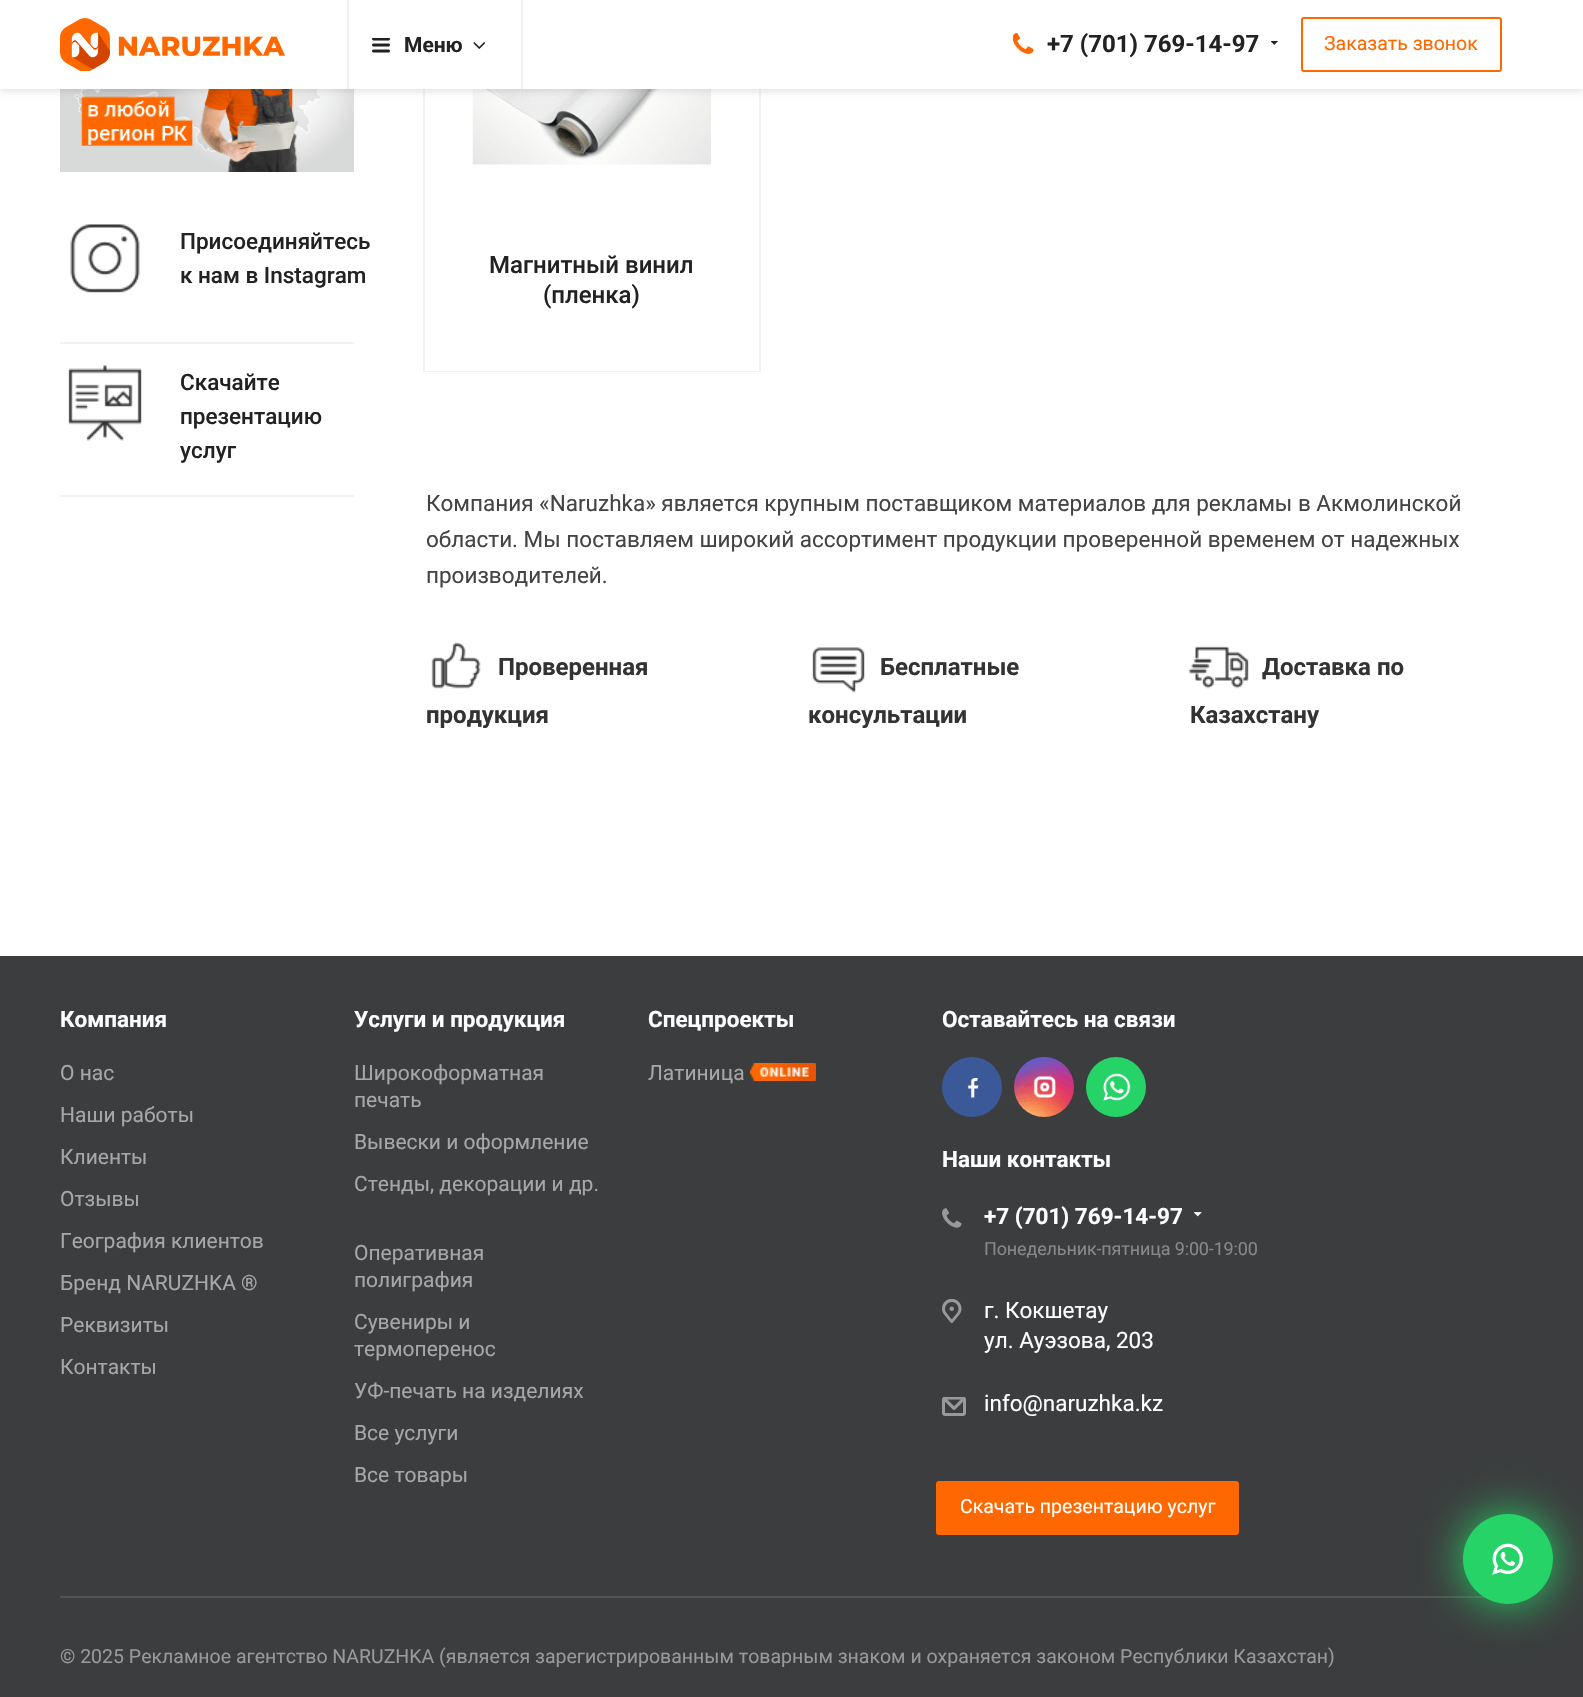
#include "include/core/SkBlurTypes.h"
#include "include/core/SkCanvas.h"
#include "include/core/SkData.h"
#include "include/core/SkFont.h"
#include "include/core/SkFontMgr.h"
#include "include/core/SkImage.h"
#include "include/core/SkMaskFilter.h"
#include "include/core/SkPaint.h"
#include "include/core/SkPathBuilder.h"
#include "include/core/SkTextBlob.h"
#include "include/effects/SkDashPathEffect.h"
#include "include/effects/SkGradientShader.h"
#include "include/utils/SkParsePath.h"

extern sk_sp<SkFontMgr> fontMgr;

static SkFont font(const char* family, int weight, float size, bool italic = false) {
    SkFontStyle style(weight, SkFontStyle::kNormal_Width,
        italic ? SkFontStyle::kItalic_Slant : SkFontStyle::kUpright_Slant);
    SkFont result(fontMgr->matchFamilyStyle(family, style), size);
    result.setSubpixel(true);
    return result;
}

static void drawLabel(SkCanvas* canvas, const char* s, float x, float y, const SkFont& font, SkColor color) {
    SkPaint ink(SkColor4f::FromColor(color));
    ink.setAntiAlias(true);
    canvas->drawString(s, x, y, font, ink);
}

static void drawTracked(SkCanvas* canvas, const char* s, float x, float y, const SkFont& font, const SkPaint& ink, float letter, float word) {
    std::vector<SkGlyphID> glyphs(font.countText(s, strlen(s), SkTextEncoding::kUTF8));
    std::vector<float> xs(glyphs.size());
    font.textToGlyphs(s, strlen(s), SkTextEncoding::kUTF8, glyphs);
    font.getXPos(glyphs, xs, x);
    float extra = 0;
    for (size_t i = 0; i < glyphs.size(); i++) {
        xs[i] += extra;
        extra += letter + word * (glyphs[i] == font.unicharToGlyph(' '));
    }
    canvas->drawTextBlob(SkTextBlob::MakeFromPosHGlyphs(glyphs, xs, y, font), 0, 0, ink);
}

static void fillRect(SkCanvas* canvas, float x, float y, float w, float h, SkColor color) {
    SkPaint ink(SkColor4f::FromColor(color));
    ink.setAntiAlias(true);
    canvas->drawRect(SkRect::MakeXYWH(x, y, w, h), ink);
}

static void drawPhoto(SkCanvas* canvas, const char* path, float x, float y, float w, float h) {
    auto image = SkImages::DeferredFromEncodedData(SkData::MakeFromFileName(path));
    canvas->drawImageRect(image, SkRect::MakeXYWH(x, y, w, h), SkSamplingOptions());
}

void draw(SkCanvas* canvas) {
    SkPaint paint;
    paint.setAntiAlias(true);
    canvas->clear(0xFFFFFFFF);
    drawPhoto(canvas, "assets/img6.png", 60, 89, 294, 83);
    paint.setStroke(true);
    paint.setStrokeWidth(2);
    paint.setColor(0xFFF2F2F2);
    canvas->drawRect(SkRect::MakeXYWH(424, -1, 336, 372), paint);
    drawPhoto(canvas, "assets/img9.png", 472, 89, 239, 76);
    paint.setStroke(false);
    paint.setColor(0x24000000);
    paint.setMaskFilter(SkMaskFilter::MakeBlur(kNormal_SkBlurStyle, 4));
    canvas->drawRect(SkRect::MakeXYWH(0, 2, 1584, 88), paint);
    paint.setMaskFilter(nullptr);
    fillRect(canvas, 0, 0, 1583, 89, 0xFFFFFFFF);
    fillRect(canvas, 347, 0, 2, 89, 0xFFF2F2F2);
    drawPhoto(canvas, "assets/img1.png", 60, 18, 225, 53);
    fillRect(canvas, 521, 0, 2, 89, 0xFFF2F2F2);
    drawPhoto(canvas, "assets/img2.png", 372, 38, 18, 15);
    SkFont font1 = font("Roboto", 700, 21);
    drawLabel(canvas, "Меню", 404, 52, font1, 0xFF222222);
    drawPhoto(canvas, "assets/img3.png", 473, 42, 12, 7);
    drawPhoto(canvas, "assets/img4.png", 1013, 33, 21, 21);
    SkFont font2 = font("Roboto", 700, 24);
    drawLabel(canvas, "+7 (701) 769-14-97", 1047, 52, font2, 0xFF222222);
    drawPhoto(canvas, "assets/img5.png", 1271, 41, 7, 4);
    paint.setStroke(true);
    paint.setColor(0xFFFF6800);
    canvas->drawRoundRect(SkRect::MakeXYWH(1302, 18, 199, 53), 2, 2, paint);
    SkFont font3 = font("Roboto", 400, 19.5f);
    drawLabel(canvas, "Заказать звонок", 1324, 50, font3, 0xFFFF6800);
    fillRect(canvas, 60, 342, 294, 2, 0xFFF2F2F2);
    drawPhoto(canvas, "assets/img7.png", 70, 224, 70, 69);
    SkFont font4 = font("Roboto", 500, 22.5f);
    drawLabel(canvas, "Присоединяйтесь", 180, 249, font4, 0xFF222222);
    drawLabel(canvas, "к нам в Instagram", 180, 283, font4, 0xFF222222);
    fillRect(canvas, 60, 495, 294, 2, 0xFFF2F2F2);
    drawPhoto(canvas, "assets/img8.png", 68, 365, 74, 76);
    drawLabel(canvas, "Скачайте", 180, 390, font4, 0xFF222222);
    drawLabel(canvas, "презентацию", 180, 424, font4, 0xFF222222);
    drawLabel(canvas, "услуг", 180, 458, font4, 0xFF222222);
    fillRect(canvas, 425, 370, 334, 1, 0xFFFFFFFF);
    SkFont font5 = font("Roboto", 500, 24);
    drawLabel(canvas, "Магнитный винил", 489, 273, font5, 0xFF222222);
    drawLabel(canvas, "(пленка)", 543, 303, font5, 0xFF222222);
    SkFont font6 = font("Roboto", 400, 22.5f);
    drawLabel(canvas, "Компания «Naruzhka» является крупным поставщиком материалов для рекламы в Акмолинской", 426, 511, font6, 0xFF444444);
    drawLabel(canvas, "области. Мы поставляем широкий ассортимент продукции проверенной временем от надежных", 426, 547, font6, 0xFF444444);
    drawLabel(canvas, "производителей.", 426, 583, font6, 0xFF444444);
    drawPhoto(canvas, "assets/img10.png", 431, 642, 50, 47);
    drawLabel(canvas, "Проверенная", 498, 675, font2, 0xFF333333);
    drawLabel(canvas, "продукция", 426, 723, font2, 0xFF333333);
    drawPhoto(canvas, "assets/img11.png", 812, 647, 53, 46);
    drawLabel(canvas, "Бесплатные", 880, 675, font2, 0xFF333333);
    drawLabel(canvas, "консультации", 808, 723, font2, 0xFF333333);
    drawPhoto(canvas, "assets/img12.png", 1189, 646, 60, 43);
    drawLabel(canvas, "Доставка по", 1262, 675, font2, 0xFF333333);
    drawLabel(canvas, "Казахстану", 1190, 723, font2, 0xFF333333);
    fillRect(canvas, 0, 956, 1583, 741, 0xFF3B3D3E);
    SkFont font7 = font("Roboto", 700, 22.5f);
    drawLabel(canvas, "Компания", 60, 1027, font7, 0xFFFFFFFF);
    SkFont font8 = font("Roboto", 400, 21);
    drawLabel(canvas, "О нас", 60, 1080, font8, 0xFFA7A7A7);
    drawLabel(canvas, "Наши работы", 60, 1122, font8, 0xFFA7A7A7);
    drawLabel(canvas, "Клиенты", 60, 1164, font8, 0xFFA7A7A7);
    drawLabel(canvas, "Отзывы", 60, 1206, font8, 0xFFA7A7A7);
    drawLabel(canvas, "География клиентов", 60, 1248, font8, 0xFFA7A7A7);
    drawLabel(canvas, "Бренд NARUZHKA ®", 60, 1290, font8, 0xFFA7A7A7);
    drawLabel(canvas, "Реквизиты", 60, 1332, font8, 0xFFA7A7A7);
    drawLabel(canvas, "Контакты", 60, 1374, font8, 0xFFA7A7A7);
    drawLabel(canvas, "Услуги и продукция", 354, 1027, font7, 0xFFFFFFFF);
    drawLabel(canvas, "Широкоформатная", 354, 1080, font8, 0xFFA7A7A7);
    drawLabel(canvas, "печать", 354, 1107, font8, 0xFFA7A7A7);
    drawLabel(canvas, "Вывески и оформление", 354, 1149, font8, 0xFFA7A7A7);
    drawLabel(canvas, "Стенды, декорации и др.", 354, 1191, font8, 0xFFA7A7A7);
    drawLabel(canvas, "Оперативная", 354, 1260, font8, 0xFFA7A7A7);
    drawLabel(canvas, "полиграфия", 354, 1287, font8, 0xFFA7A7A7);
    drawLabel(canvas, "Сувениры и", 354, 1329, font8, 0xFFA7A7A7);
    drawLabel(canvas, "термоперенос", 354, 1356, font8, 0xFFA7A7A7);
    drawLabel(canvas, "УФ-печать на изделиях", 354, 1398, font8, 0xFFA7A7A7);
    drawLabel(canvas, "Все услуги", 354, 1440, font8, 0xFFA7A7A7);
    drawLabel(canvas, "Все товары", 354, 1482, font8, 0xFFA7A7A7);
    drawLabel(canvas, "Спецпроекты", 648, 1027, font7, 0xFFFFFFFF);
    drawLabel(canvas, "Латиница", 648, 1080, font8, 0xFFA7A7A7);
    drawPhoto(canvas, "assets/img13.png", 750, 1063, 66, 18);
    drawLabel(canvas, "Оставайтесь на связи", 942, 1027, font7, 0xFFFFFFFF);
    drawPhoto(canvas, "assets/img14.png", 942, 1057, 60, 60);
    drawPhoto(canvas, "assets/img15.png", 1014, 1057, 60, 60);
    drawPhoto(canvas, "assets/img16.png", 1086, 1057, 60, 60);
    drawLabel(canvas, "Наши контакты", 942, 1167, font7, 0xFFFFFFFF);
    drawPhoto(canvas, "assets/img17.png", 942, 1208, 20, 20);
    drawLabel(canvas, "+7 (701) 769-14-97", 984, 1224, font7, 0xFFFFFFFF);
    drawPhoto(canvas, "assets/img18.png", 1194, 1212, 8, 5);
    SkFont font9 = font("Roboto", 400, 18);
    paint.setStroke(false);
    paint.setColor(0xFF888888);
    drawTracked(canvas, "Понедельник-пятница 9:00-19:00", 984, 1255, font9, paint, -0.15f, 0);
    drawPhoto(canvas, "assets/img19.png", 942, 1299, 20, 24);
    drawLabel(canvas, "г. Кокшетау", 984, 1318, font6, 0xFFFFFFFF);
    drawLabel(canvas, "ул. Ауэзова, 203", 984, 1348, font6, 0xFFFFFFFF);
    drawPhoto(canvas, "assets/img20.png", 942, 1397, 24, 19);
    drawLabel(canvas, "info@naruzhka.kz", 984, 1411, font6, 0xFFFFFFFF);
    paint.setColor(0xFFFF6800);
    canvas->drawRoundRect(SkRect::MakeXYWH(937, 1482, 301, 52), 2, 2, paint);
    paint.setStroke(true);
    canvas->drawRoundRect(SkRect::MakeXYWH(937, 1482, 301, 52), 2, 2, paint);
    drawLabel(canvas, "Скачать презентацию услуг", 960, 1513, font3, 0xFFFFFFFF);
    fillRect(canvas, 60, 1596, 1426, 2, 0xFF515354);
    drawLabel(canvas, "© 2025 Рекламное агентство NARUZHKA (является зарегистрированным товарным знаком и охраняется законом Республики Казахстан)", 60, 1663, font3, 0xFF999999);
    paint.setStroke(false);
    paint.setColor(0xFF25D366);
    paint.setMaskFilter(SkMaskFilter::MakeBlur(kNormal_SkBlurStyle, 22.5f));
    canvas->drawRoundRect(SkRect::MakeXYWH(1463, 1514, 90, 90), 45, 45, paint);
    paint.setMaskFilter(nullptr);
    canvas->drawCircle(1508, 1559, 45, paint);
    drawPhoto(canvas, "assets/img21.png", 1492, 1543, 31, 32);
}
